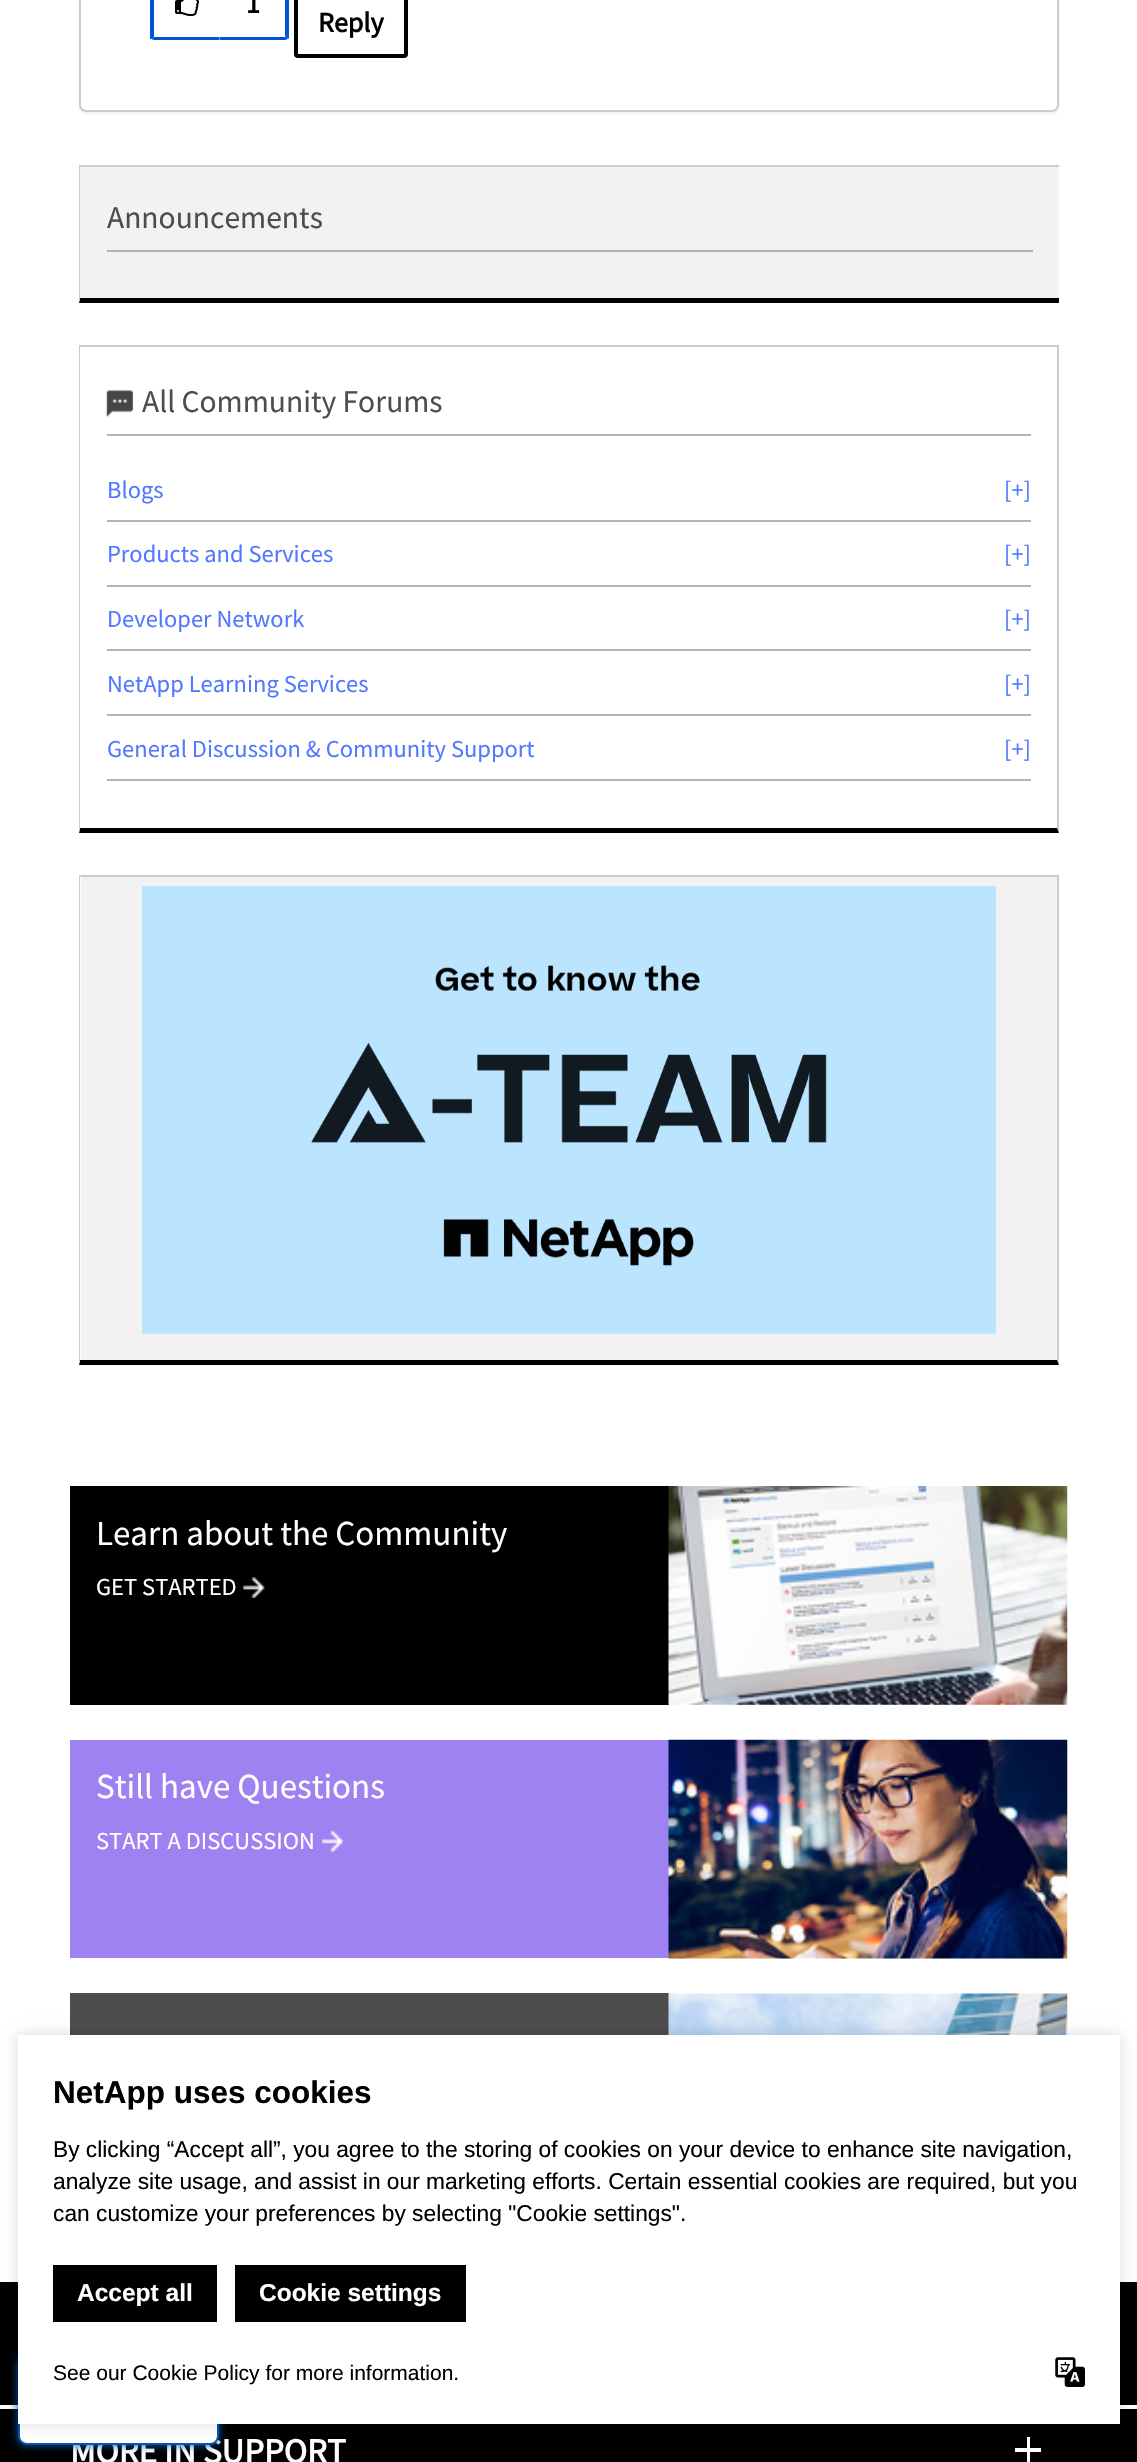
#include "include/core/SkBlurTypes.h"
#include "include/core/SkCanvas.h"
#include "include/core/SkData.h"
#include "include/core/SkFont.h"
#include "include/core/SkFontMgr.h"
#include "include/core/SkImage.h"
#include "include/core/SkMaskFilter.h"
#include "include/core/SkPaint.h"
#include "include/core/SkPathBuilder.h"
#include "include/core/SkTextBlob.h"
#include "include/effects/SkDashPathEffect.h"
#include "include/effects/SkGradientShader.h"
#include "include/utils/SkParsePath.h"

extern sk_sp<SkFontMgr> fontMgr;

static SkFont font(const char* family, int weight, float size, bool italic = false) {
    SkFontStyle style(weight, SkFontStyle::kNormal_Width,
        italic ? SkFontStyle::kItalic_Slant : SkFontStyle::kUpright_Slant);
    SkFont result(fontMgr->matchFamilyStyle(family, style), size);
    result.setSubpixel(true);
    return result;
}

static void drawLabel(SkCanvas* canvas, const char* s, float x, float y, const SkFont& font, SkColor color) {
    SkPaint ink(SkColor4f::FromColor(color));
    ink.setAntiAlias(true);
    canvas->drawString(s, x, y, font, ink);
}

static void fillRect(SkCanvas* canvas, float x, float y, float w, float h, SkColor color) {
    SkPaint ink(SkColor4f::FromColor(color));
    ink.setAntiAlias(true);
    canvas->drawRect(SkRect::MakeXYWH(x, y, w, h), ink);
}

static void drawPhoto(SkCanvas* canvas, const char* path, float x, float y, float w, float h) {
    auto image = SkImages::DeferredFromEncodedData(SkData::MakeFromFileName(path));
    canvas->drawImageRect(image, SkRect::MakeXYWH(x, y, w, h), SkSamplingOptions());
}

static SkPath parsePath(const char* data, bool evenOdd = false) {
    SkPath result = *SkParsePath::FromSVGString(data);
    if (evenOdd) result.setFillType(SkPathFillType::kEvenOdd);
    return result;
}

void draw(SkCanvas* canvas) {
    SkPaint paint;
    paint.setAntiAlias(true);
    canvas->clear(0xFFFFFFFF);
    paint.setColor(0x0D000000);
    paint.setMaskFilter(SkMaskFilter::MakeBlur(kNormal_SkBlurStyle, 1));
    canvas->drawRoundRect(SkRect::MakeXYWH(79, -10, 980, 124), 7, 7, paint);
    paint.setMaskFilter(nullptr);
    paint.setColor(0xFFFFFFFF);
    canvas->drawRoundRect(SkRect::MakeXYWH(80, -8, 978, 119), 6, 6, paint);
    paint.setStroke(true);
    paint.setStrokeWidth(2);
    paint.setColor(0xFFCCCCCC);
    canvas->drawRoundRect(SkRect::MakeXYWH(80, -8, 978, 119), 6, 6, paint);
    paint.setStroke(false);
    paint.setColor(0xFF0054D7);
    canvas->drawPath(parsePath("M288-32L289-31V38L288 39L285 36V-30Z"), paint);
    canvas->drawPath(parsePath("M288 39L285 40H222C221 40 220 40 219 39L220 37H285V36Z"), paint);
    paint.setColor(0xFFFFFFFF);
    canvas->drawPath(parsePath("M220 39V-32L219-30V37Z"), paint);
    paint.setColor(0xFF0054D7);
    canvas->drawPath(parsePath("M220 39C219 40 218 40 217 40H154L151 39L154 37H219Z"), paint);
    canvas->drawPath(parsePath("M150-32H151L154-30V37L151 39H150Z"), paint);
    drawPhoto(canvas, "assets/img1.png", 175, 0, 24, 16);
    SkFont font1 = font("Source Sans Pro", 700, 28);
    drawLabel(canvas, "1", 246, 13, font1, 0xFF000000);
    paint.setStroke(true);
    paint.setStrokeWidth(4);
    paint.setColor(0xFF000000);
    canvas->drawRoundRect(SkRect::MakeXYWH(296, -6, 110, 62), 2, 2, paint);
    drawLabel(canvas, "Reply", 318, 32, font1, 0xFF000000);
    fillRect(canvas, 79, 167, 980, 136, 0xFFF2F2F2);
    fillRect(canvas, 79, 165, 980, 2, 0xFFCCCCCC);
    paint.setStroke(false);
    canvas->drawPath(parsePath("M1059 303H79L80 298H1059Z"), paint);
    paint.setColor(0xFFCCCCCC);
    canvas->drawPath(parsePath("M79 303V164L80 166V298Z"), paint);
    fillRect(canvas, 107, 250, 926, 2, 0xFFB3B3B3);
    SkFont font2 = font("Source Sans Pro", 400, 31.5f);
    drawLabel(canvas, "Announcements", 107, 228, font2, 0xFF4D4D4D);
    fillRect(canvas, 79, 345, 980, 2, 0xFFCCCCCC);
    canvas->drawPath(parsePath("M1059 345V833L1057 828V346Z"), paint);
    paint.setColor(0xFF000000);
    canvas->drawPath(parsePath("M1059 833H79L80 828H1057Z"), paint);
    paint.setColor(0xFFCCCCCC);
    canvas->drawPath(parsePath("M79 833V345L80 346V828Z"), paint);
    fillRect(canvas, 107, 434, 924, 2, 0xFFB3B3B3);
    drawPhoto(canvas, "assets/img2.png", 106, 390, 27, 27);
    drawLabel(canvas, "All Community Forums", 142, 412, font2, 0xFF4D4D4D);
    fillRect(canvas, 107, 520, 924, 2, 0xFFB3B3B3);
    SkFont font3 = font("Source Sans Pro", 400, 24.5f);
    drawLabel(canvas, "Blogs", 107, 498, font3, 0xFF5278FF);
    drawLabel(canvas, "[+]", 1004, 498, font3, 0xFF5278FF);
    fillRect(canvas, 107, 585, 924, 2, 0xFFB3B3B3);
    drawLabel(canvas, "Products and Services", 107, 562, font3, 0xFF5278FF);
    drawLabel(canvas, "[+]", 1004, 562, font3, 0xFF5278FF);
    fillRect(canvas, 107, 649, 924, 2, 0xFFB3B3B3);
    drawLabel(canvas, "Developer Network", 107, 627, font3, 0xFF5278FF);
    drawLabel(canvas, "[+]", 1004, 627, font3, 0xFF5278FF);
    fillRect(canvas, 107, 714, 924, 2, 0xFFB3B3B3);
    drawLabel(canvas, "NetApp Learning Services", 107, 692, font3, 0xFF5278FF);
    drawLabel(canvas, "[+]", 1004, 692, font3, 0xFF5278FF);
    fillRect(canvas, 107, 779, 924, 2, 0xFFB3B3B3);
    drawLabel(canvas, "General Discussion & Community Support", 107, 757, font3, 0xFF5278FF);
    drawLabel(canvas, "[+]", 1004, 757, font3, 0xFF5278FF);
    fillRect(canvas, 81, 877, 976, 483, 0xFFF2F2F2);
    fillRect(canvas, 79, 875, 980, 2, 0xFFCCCCCC);
    canvas->drawPath(parsePath("M1059 875V1365L1057 1360V877Z"), paint);
    paint.setColor(0xFF000000);
    canvas->drawPath(parsePath("M1059 1365H79L80 1360H1057Z"), paint);
    paint.setColor(0xFFCCCCCC);
    canvas->drawPath(parsePath("M79 1365V875L80 877V1360Z"), paint);
    drawPhoto(canvas, "assets/img3.png", 142, 886, 854, 448);
    fillRect(canvas, 70, 1486, 599, 219, 0xFF000000);
    SkFont font4 = font("Source Sans Pro", 400, 35);
    drawLabel(canvas, "Learn about the Community", 96, 1545, font4, 0xFFFFFFFF);
    drawLabel(canvas, "GET STARTED", 96, 1595, font3, 0xFFFFFFFF);
    drawPhoto(canvas, "assets/img4.png", 243, 1577, 22, 21);
    drawPhoto(canvas, "assets/img5.png", 668, 1486, 400, 219);
    fillRect(canvas, 70, 1740, 599, 218, 0xFF9F82F1);
    drawLabel(canvas, "Still have Questions", 96, 1798, font4, 0xFFFFFFFF);
    drawLabel(canvas, "START A DISCUSSION", 96, 1849, font3, 0xFFFFFFFF);
    drawPhoto(canvas, "assets/img6.png", 322, 1830, 21, 22);
    drawPhoto(canvas, "assets/img7.png", 668, 1739, 400, 220);
    fillRect(canvas, 70, 1993, 599, 42, 0xFF4D4D4D);
    drawPhoto(canvas, "assets/img8.png", 668, 1993, 400, 42);
    fillRect(canvas, 0, 2282, 1137, 180, 0xFF000000);
    fillRect(canvas, 0, 2405, 1137, 4, 0xFFFFFFFF);
    SkFont font5 = font("Source Sans Pro", 700, 35);
    drawLabel(canvas, "MORE IN SUPPORT", 70, 2463, font5, 0xFFFFFFFF);
    fillRect(canvas, 1027, 2437, 3, 25, 0xFFFFFFFF);
    fillRect(canvas, 1015, 2448, 26, 4, 0xFFFFFFFF);
    paint.setColor(0xFF0057B7);
    paint.setMaskFilter(SkMaskFilter::MakeBlur(kNormal_SkBlurStyle, 4.5f));
    canvas->drawRoundRect(SkRect::MakeXYWH(18, 2357, 201, 88), 9, 9, paint);
    paint.setMaskFilter(nullptr);
    paint.setColor(0xFFFFFFFF);
    canvas->drawRoundRect(SkRect::MakeXYWH(19, 2358, 199, 86), 8, 8, paint);
    paint.setStroke(true);
    paint.setStrokeWidth(2);
    paint.setColor(0xFF0057B7);
    canvas->drawRoundRect(SkRect::MakeXYWH(19, 2358, 199, 86), 8, 8, paint);
    paint.setStroke(false);
    paint.setColor(0x26000000);
    paint.setMaskFilter(SkMaskFilter::MakeBlur(kNormal_SkBlurStyle, 7));
    canvas->drawRect(SkRect::MakeXYWH(18, 2035, 1102, 389), paint);
    paint.setMaskFilter(nullptr);
    fillRect(canvas, 18, 2035, 1102, 389, 0xFFFFFFFF);
    SkFont font6 = font("Liberation Sans", 700, 31.5f);
    drawLabel(canvas, "NetApp uses cookies", 53, 2103, font6, 0xFF000000);
    SkFont font7 = font("Liberation Sans", 400, 22.75f);
    drawLabel(canvas, "By clicking “Accept all”, you agree to the storing of cookies on your device to enhance site navigation,", 53, 2157, font7, 0xFF000000);
    drawLabel(canvas, "analyze site usage, and assist in our marketing efforts. Certain essential cookies are required, but you", 53, 2189, font7, 0xFF000000);
    drawLabel(canvas, "can customize your preferences by selecting \"Cookie settings\".", 53, 2221, font7, 0xFF000000);
    fillRect(canvas, 53, 2265, 164, 57, 0xFF000000);
    SkFont font8 = font("Liberation Sans", 700, 24.5f);
    drawLabel(canvas, "Accept all", 77, 2301, font8, 0xFFFFFFFF);
    fillRect(canvas, 235, 2265, 231, 57, 0xFF000000);
    drawLabel(canvas, "Cookie settings", 259, 2301, font8, 0xFFFFFFFF);
    SkFont font9 = font("Liberation Sans", 400, 21);
    drawLabel(canvas, "See our Cookie Policy for more information.", 53, 2380, font9, 0xFF000000);
    drawPhoto(canvas, "assets/img9.png", 1055, 2357, 30, 30);
}
